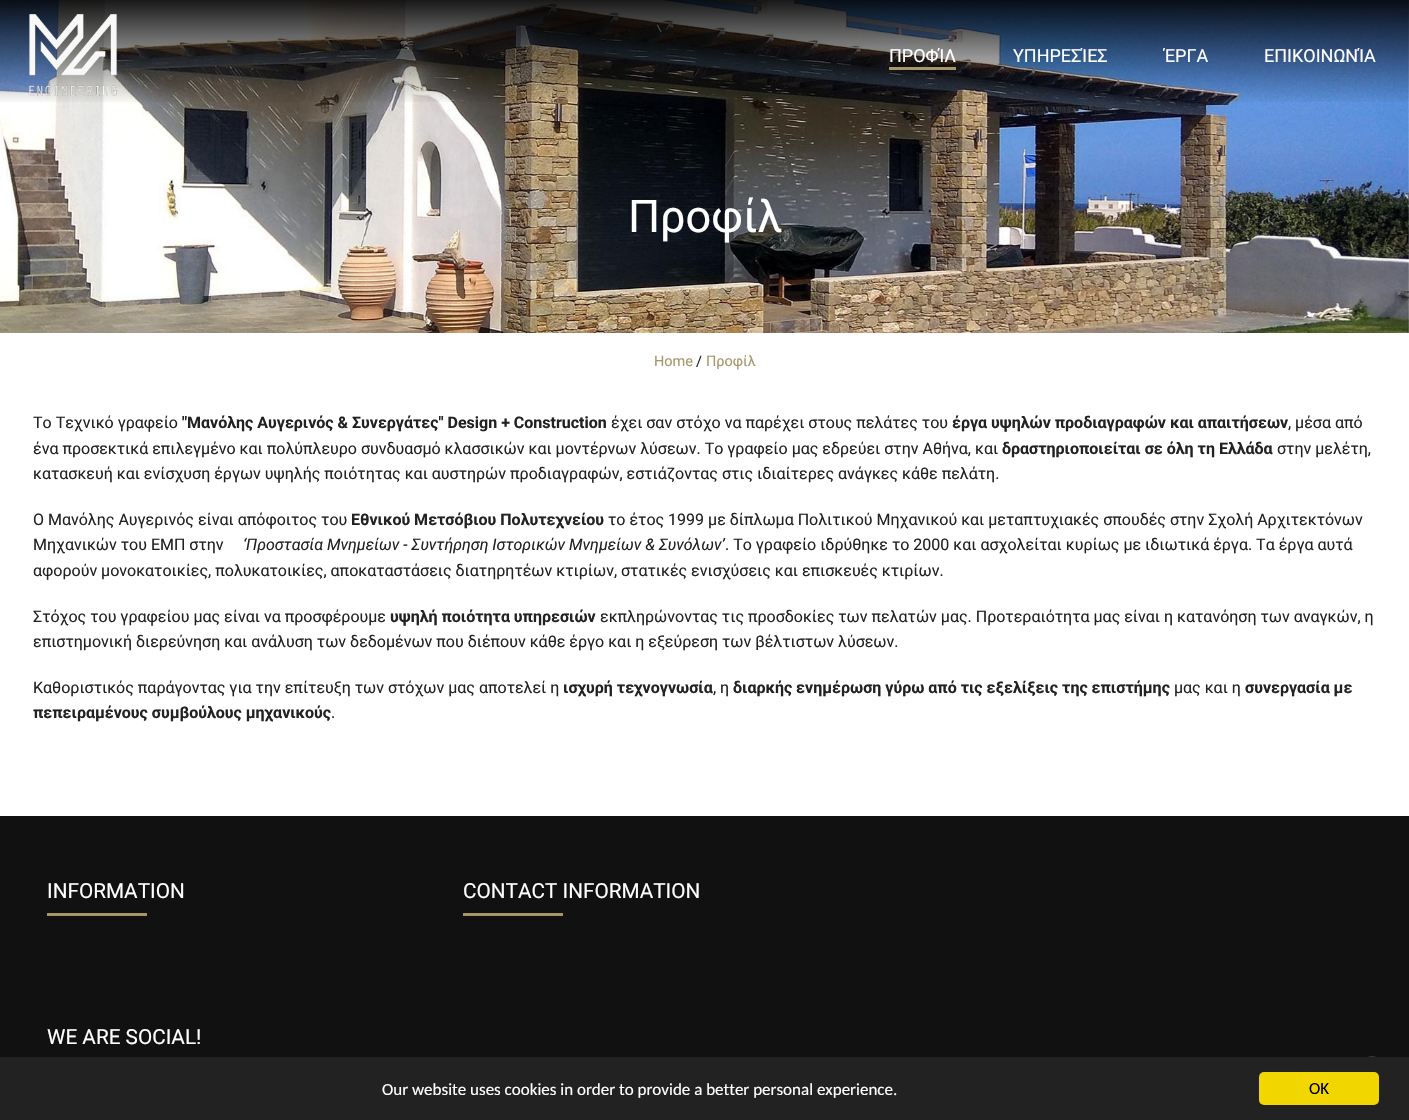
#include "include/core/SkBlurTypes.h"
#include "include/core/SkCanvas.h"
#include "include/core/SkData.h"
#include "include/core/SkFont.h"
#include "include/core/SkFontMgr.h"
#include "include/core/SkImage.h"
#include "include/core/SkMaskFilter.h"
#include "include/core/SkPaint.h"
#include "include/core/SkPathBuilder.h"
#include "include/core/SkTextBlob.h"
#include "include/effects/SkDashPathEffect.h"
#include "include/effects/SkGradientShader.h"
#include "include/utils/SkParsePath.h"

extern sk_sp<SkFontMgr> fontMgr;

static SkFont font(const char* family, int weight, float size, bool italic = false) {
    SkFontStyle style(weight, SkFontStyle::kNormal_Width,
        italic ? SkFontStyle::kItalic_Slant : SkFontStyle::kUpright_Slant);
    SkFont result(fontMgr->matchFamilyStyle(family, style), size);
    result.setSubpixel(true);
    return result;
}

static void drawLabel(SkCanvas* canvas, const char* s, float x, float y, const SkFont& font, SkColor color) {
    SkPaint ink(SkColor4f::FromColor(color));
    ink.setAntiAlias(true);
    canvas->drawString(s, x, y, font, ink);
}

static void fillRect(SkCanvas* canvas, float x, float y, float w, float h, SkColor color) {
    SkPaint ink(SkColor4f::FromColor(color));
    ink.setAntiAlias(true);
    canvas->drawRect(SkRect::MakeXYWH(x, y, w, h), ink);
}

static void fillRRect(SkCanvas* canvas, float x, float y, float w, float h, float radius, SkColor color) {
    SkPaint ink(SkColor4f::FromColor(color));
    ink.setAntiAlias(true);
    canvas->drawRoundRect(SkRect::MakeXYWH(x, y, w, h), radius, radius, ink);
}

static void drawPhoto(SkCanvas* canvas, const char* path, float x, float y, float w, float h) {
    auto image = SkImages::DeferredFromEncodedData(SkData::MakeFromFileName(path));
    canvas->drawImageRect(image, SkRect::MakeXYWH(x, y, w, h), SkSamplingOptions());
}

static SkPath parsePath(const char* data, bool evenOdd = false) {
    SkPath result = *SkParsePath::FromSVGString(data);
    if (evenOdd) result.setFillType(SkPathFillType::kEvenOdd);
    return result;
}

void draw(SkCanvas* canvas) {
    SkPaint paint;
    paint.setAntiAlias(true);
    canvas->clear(0xFFFFFFFF);
    drawPhoto(canvas, "assets/img2.png", 0, 0, 1409, 333);
    {
        const SkColor colors[] = {0xE6000000, 0x00000000};
        const float stops[] = {0, 1};
        const SkPoint ends[] = {{705, 0}, {705, 105}};
        paint.setShader(SkGradientShader::MakeLinear(ends, colors, stops, 2, SkTileMode::kClamp));
        paint.setAlpha(255);
    }
    canvas->drawRect(SkRect::MakeXYWH(0, 0, 1409, 102), paint);
    drawPhoto(canvas, "assets/img1.png", 29, 14, 88, 82);
    SkFont font1 = font("Roboto", 400, 18);
    drawLabel(canvas, "ΠΡΟΦΊΛ", 889, 62, font1, 0xFFFFFFFF);
    fillRect(canvas, 889, 67, 67, 3, 0xFFA79669);
    drawLabel(canvas, "ΥΠΗΡΕΣΊΕΣ", 1013, 62, font1, 0xFFFFFFFF);
    drawLabel(canvas, "ΈΡΓΑ", 1164, 62, font1, 0xFFFFFFFF);
    drawLabel(canvas, "ΕΠΙΚΟΙΝΩΝΊΑ", 1264, 62, font1, 0xFFFFFFFF);
    SkFont font2 = font("Roboto", 400, 45);
    drawLabel(canvas, "Προφίλ", 628, 232, font2, 0xFFFFFFFF);
    SkFont font3 = font("Roboto", 400, 14.5f);
    drawLabel(canvas, "Home", 654, 366, font3, 0xFFA79669);
    drawLabel(canvas, "/", 696, 366, font3, 0xFF222222);
    drawLabel(canvas, "Προφίλ", 706, 366, font3, 0xFFA79669);
    SkFont font4 = font("Roboto", 400, 16);
    drawLabel(canvas, "Το Τεχνικό γραφείο", 33, 428, font4, 0xFF222222);
    SkFont font5 = font("Roboto", 700, 16);
    drawLabel(canvas, "\"Μανόλης Αυγερινός & Συνεργάτες\" Design + Construction", 182, 428, font5, 0xFF222222);
    drawLabel(canvas, "έχει σαν στόχο να παρέχει στους πελάτες του", 611, 428, font4, 0xFF222222);
    drawLabel(canvas, "έργα υψηλών προδιαγραφών και απαιτήσεων", 952, 428, font5, 0xFF222222);
    drawLabel(canvas, ", μέσα από", 1288, 428, font4, 0xFF222222);
    drawLabel(canvas, "ένα προσεκτικά επιλεγμένο και πολύπλευρο συνδυασμό κλασσικών και μοντέρνων λύσεων. Το γραφείο μας εδρεύει στην Αθήνα, και", 33, 454, font4, 0xFF222222);
    drawLabel(canvas, "δραστηριοποιείται σε όλη τη Ελλάδα", 1002, 454, font5, 0xFF222222);
    drawLabel(canvas, "στην μελέτη,", 1277, 454, font4, 0xFF222222);
    drawLabel(canvas, "κατασκευή και ενίσχυση έργων υψηλής ποιότητας και αυστηρών προδιαγραφών, εστιάζοντας στις ιδιαίτερες ανάγκες κάθε πελάτη.", 33, 479, font4, 0xFF222222);
    drawLabel(canvas, "Ο Μανόλης Αυγερινός είναι απόφοιτος του", 33, 525, font4, 0xFF222222);
    drawLabel(canvas, "Εθνικού Μετσόβιου Πολυτεχνείου", 351, 525, font5, 0xFF222222);
    drawLabel(canvas, "το έτος 1999 με δίπλωμα Πολιτικού Μηχανικού και μεταπτυχιακές σπουδές στην Σχολή Αρχιτεκτόνων", 608, 525, font4, 0xFF222222);
    drawLabel(canvas, "Μηχανικών του ΕΜΠ στην", 33, 550, font4, 0xFF222222);
    SkFont font6 = font("Roboto", 400, 16, true);
    drawLabel(canvas, "‘Προστασία Μνημείων - Συντήρηση Ιστορικών Μνημείων & Συνόλων’", 243, 550, font6, 0xFF222222);
    drawLabel(canvas, ". Το γραφείο ιδρύθηκε το 2000 και ασχολείται κυρίως με ιδιωτικά έργα. Τα έργα αυτά", 725, 550, font4, 0xFF222222);
    drawLabel(canvas, "αφορούν μονοκατοικίες, πολυκατοικίες, αποκαταστάσεις διατηρητέων κτιρίων, στατικές ενισχύσεις και επισκευές κτιρίων.", 33, 576, font4, 0xFF222222);
    drawLabel(canvas, "Στόχος του γραφείου μας είναι να προσφέρουμε", 33, 622, font4, 0xFF222222);
    drawLabel(canvas, "υψηλή ποιότητα υπηρεσιών", 390, 622, font5, 0xFF222222);
    drawLabel(canvas, "εκπληρώνοντας τις προσδοκίες των πελατών μας. Προτεραιότητα μας είναι η κατανόηση των αναγκών, η", 600, 622, font4, 0xFF222222);
    drawLabel(canvas, "επιστημονική διερεύνηση και ανάλυση των δεδομένων που διέπουν κάθε έργο και η εξεύρεση των βέλτιστων λύσεων.", 33, 647, font4, 0xFF222222);
    drawLabel(canvas, "Καθοριστικός παράγοντας για την επίτευξη των στόχων μας αποτελεί η", 33, 693, font4, 0xFF222222);
    drawLabel(canvas, "ισχυρή τεχνογνωσία", 563, 693, font5, 0xFF222222);
    drawLabel(canvas, ", η", 713, 693, font4, 0xFF222222);
    drawLabel(canvas, "διαρκής ενημέρωση γύρω από τις εξελίξεις της επιστήμης", 733, 693, font5, 0xFF222222);
    drawLabel(canvas, "μας και η", 1174, 693, font4, 0xFF222222);
    drawLabel(canvas, "συνεργασία με", 1245, 693, font5, 0xFF222222);
    drawLabel(canvas, "πεπειραμένους συμβούλους μηχανικούς", 33, 718, font5, 0xFF222222);
    drawLabel(canvas, ".", 331, 718, font4, 0xFF222222);
    fillRect(canvas, 0, 816, 1409, 241, 0xFF111111);
    SkFont font7 = font("Roboto", 400, 20.75f);
    drawLabel(canvas, "INFORMATION", 47, 898, font7, 0xFFFFFFFF);
    fillRect(canvas, 47, 913, 100, 3, 0xFFA79669);
    drawLabel(canvas, "WE ARE SOCIAL!", 47, 1044, font7, 0xFFFFFFFF);
    drawLabel(canvas, "CONTACT INFORMATION", 463, 898, font7, 0xFFFFFFFF);
    fillRect(canvas, 463, 913, 100, 3, 0xFFA79669);
    paint.setShader(nullptr);
    paint.setColor(0xFF0A0A0A);
    canvas->drawPath(parsePath("M1399 1083C1399 1098 1387 1110 1372 1110C1357 1110 1345 1098 1345 1083C1345 1068 1357 1056 1372 1056C1387 1056 1399 1068 1399 1083Z"), paint);
    paint.setStroke(true);
    paint.setStrokeWidth(2);
    paint.setColor(0xFF707070);
    canvas->drawPath(parsePath("M1398 1083C1398 1117 1346 1117 1346 1083C1346 1049 1398 1049 1398 1083Z"), paint);
    fillRect(canvas, 0, 1057, 1409, 63, 0xFF222222);
    SkFont font8 = font("Carlito", 400, 17);
    drawLabel(canvas, "Our website uses cookies in order to provide a better personal experience.", 382, 1095, font8, 0xFFFFFFFF);
    fillRRect(canvas, 1259, 1072, 120, 33, 5, 0xFFF1D600);
    drawLabel(canvas, "ΟΚ", 1309, 1094, font8, 0xFF000000);
}
